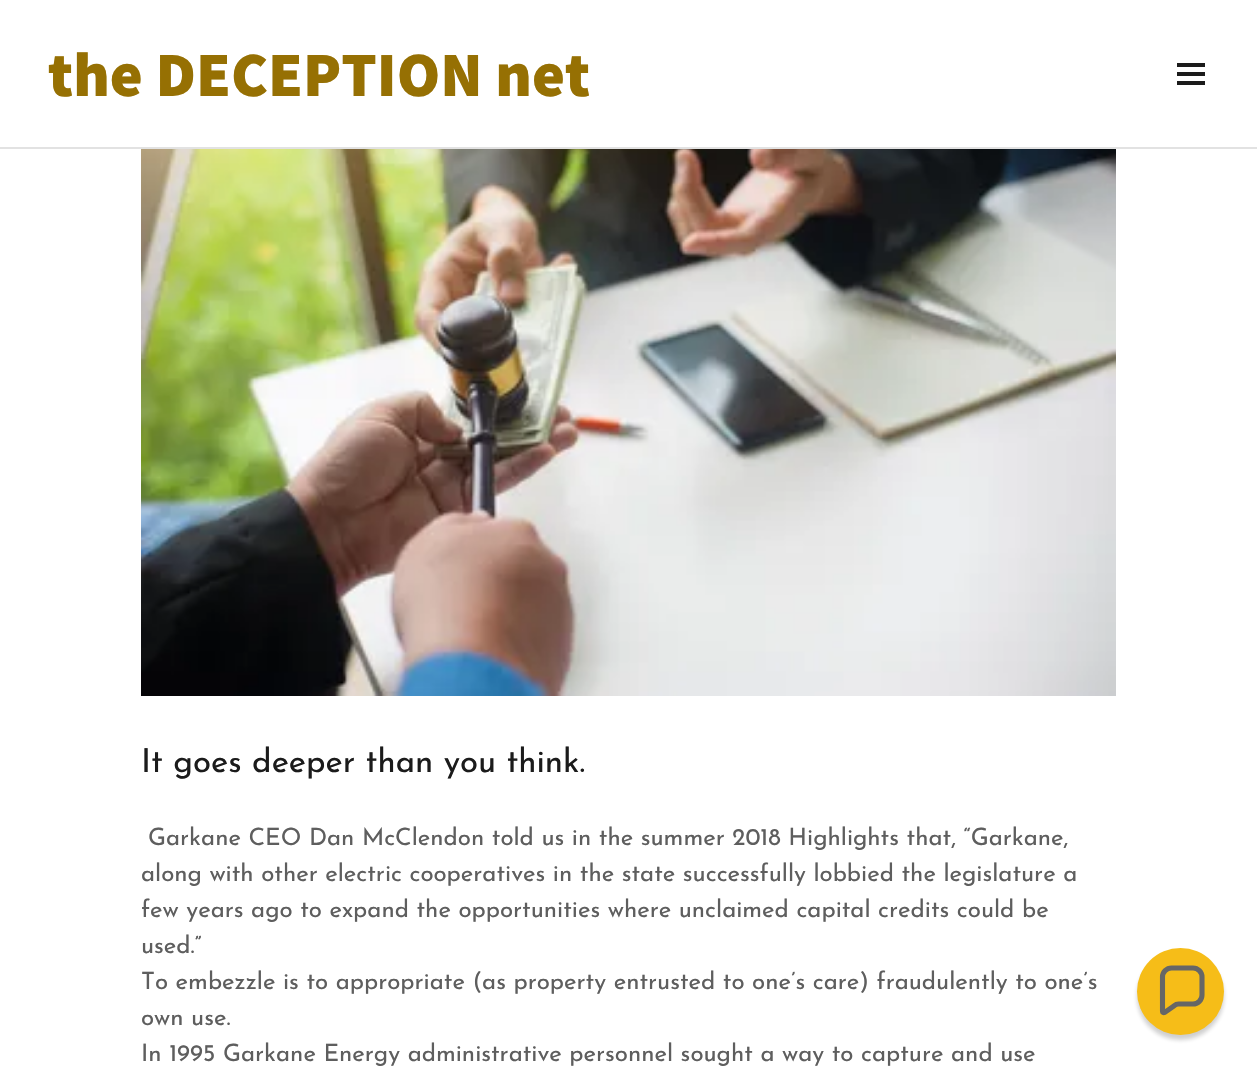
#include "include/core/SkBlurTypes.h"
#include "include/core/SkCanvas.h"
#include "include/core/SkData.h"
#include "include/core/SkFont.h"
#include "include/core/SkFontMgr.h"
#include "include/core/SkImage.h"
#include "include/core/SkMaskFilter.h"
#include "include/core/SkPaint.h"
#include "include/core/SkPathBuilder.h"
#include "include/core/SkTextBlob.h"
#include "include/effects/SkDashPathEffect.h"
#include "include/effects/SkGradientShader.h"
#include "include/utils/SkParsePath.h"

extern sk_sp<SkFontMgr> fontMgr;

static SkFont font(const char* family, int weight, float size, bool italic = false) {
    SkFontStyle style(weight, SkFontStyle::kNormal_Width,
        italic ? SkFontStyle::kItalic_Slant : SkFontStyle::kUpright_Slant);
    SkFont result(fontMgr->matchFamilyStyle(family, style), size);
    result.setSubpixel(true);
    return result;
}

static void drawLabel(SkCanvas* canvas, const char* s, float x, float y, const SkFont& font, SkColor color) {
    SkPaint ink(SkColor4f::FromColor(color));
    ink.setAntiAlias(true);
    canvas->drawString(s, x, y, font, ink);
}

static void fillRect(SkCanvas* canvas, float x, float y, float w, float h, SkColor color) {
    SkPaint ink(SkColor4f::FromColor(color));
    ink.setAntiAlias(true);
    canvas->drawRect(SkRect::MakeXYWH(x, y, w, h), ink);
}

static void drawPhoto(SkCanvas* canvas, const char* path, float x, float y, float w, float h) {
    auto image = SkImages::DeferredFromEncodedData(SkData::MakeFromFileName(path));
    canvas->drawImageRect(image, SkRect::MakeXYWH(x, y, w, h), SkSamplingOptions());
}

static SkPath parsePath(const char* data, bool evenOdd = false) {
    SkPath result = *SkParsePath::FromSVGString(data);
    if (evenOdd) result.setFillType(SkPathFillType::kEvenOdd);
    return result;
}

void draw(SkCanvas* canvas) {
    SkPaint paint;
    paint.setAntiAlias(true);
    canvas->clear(0xFFFFFFFF);
    SkFont font1 = font("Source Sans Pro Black", 900, 63);
    drawLabel(canvas, "the DECEPTION net", 48, 96, font1, 0xFF967003);
    fillRect(canvas, 1177, 63, 28, 4, 0xFF1B1B1B);
    fillRect(canvas, 1177, 72, 28, 4, 0xFF1B1B1B);
    fillRect(canvas, 1177, 81, 28, 4, 0xFF1B1B1B);
    fillRect(canvas, 0, 147, 1257, 2, 0xFFE2E2E2);
    drawPhoto(canvas, "assets/img1.png", 141, 149, 975, 547);
    SkFont font2 = font("Josefin Sans", 400, 33);
    drawLabel(canvas, "It goes deeper than you think.", 141, 772, font2, 0xFF1B1B1B);
    SkFont font3 = font("Josefin Sans", 400, 24);
    drawLabel(canvas, "Garkane CEO Dan McClendon told us in the summer 2018 Highlights that, “Garkane,", 148, 845, font3, 0xFF5E5E5E);
    drawLabel(canvas, "along with other electric cooperatives in the state successfully lobbied the legislature a", 141, 881, font3, 0xFF5E5E5E);
    drawLabel(canvas, "few years ago to expand the opportunities where unclaimed capital credits could be", 141, 917, font3, 0xFF5E5E5E);
    drawLabel(canvas, "used.”", 141, 953, font3, 0xFF5E5E5E);
    drawLabel(canvas, "To embezzle is to appropriate (as property entrusted to one’s care) fraudulently to one’s", 141, 989, font3, 0xFF5E5E5E);
    drawLabel(canvas, "own use.", 141, 1025, font3, 0xFF5E5E5E);
    drawLabel(canvas, "In 1995 Garkane Energy administrative personnel sought a way to capture and use", 141, 1061, font3, 0xFF5E5E5E);
    paint.setColor(0x330D0D0D);
    paint.setMaskFilter(SkMaskFilter::MakeBlur(kNormal_SkBlurStyle, 2));
    canvas->drawRoundRect(SkRect::MakeXYWH(1137, 953, 87, 87), 43.5f, 43.5f, paint);
    paint.setMaskFilter(nullptr);
    paint.setColor(0xFFF6BD18);
    canvas->drawCircle(1180.5f, 991.5f, 43.5f, paint);
    paint.setStroke(true);
    paint.setStrokeWidth(5.1f);
    paint.setColor(0xFF666666);
    canvas->drawPath(parsePath("M1193 968H1171.5C1166.5 968 1162.5 972 1162.5 977V1011.5C1162.5 1012.5 1163.5 1013 1164.5 1012.5L1174.5 1005.5C1175.5 1004.5 1177 1004 1178.5 1004H1193C1198 1004 1202 1000 1202 995V977C1202 972 1198 968 1193 968Z"), paint);
}
